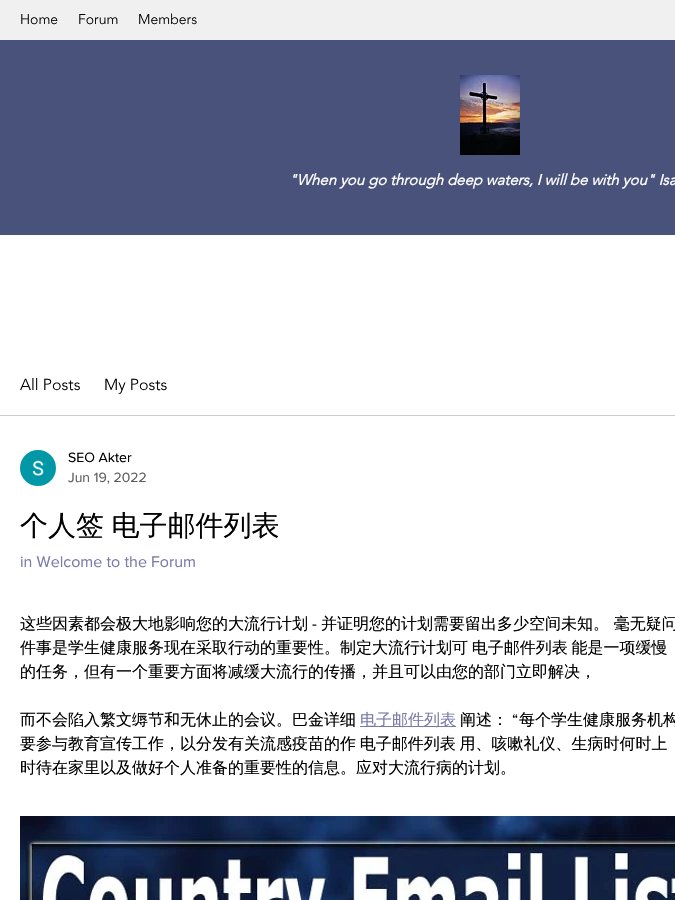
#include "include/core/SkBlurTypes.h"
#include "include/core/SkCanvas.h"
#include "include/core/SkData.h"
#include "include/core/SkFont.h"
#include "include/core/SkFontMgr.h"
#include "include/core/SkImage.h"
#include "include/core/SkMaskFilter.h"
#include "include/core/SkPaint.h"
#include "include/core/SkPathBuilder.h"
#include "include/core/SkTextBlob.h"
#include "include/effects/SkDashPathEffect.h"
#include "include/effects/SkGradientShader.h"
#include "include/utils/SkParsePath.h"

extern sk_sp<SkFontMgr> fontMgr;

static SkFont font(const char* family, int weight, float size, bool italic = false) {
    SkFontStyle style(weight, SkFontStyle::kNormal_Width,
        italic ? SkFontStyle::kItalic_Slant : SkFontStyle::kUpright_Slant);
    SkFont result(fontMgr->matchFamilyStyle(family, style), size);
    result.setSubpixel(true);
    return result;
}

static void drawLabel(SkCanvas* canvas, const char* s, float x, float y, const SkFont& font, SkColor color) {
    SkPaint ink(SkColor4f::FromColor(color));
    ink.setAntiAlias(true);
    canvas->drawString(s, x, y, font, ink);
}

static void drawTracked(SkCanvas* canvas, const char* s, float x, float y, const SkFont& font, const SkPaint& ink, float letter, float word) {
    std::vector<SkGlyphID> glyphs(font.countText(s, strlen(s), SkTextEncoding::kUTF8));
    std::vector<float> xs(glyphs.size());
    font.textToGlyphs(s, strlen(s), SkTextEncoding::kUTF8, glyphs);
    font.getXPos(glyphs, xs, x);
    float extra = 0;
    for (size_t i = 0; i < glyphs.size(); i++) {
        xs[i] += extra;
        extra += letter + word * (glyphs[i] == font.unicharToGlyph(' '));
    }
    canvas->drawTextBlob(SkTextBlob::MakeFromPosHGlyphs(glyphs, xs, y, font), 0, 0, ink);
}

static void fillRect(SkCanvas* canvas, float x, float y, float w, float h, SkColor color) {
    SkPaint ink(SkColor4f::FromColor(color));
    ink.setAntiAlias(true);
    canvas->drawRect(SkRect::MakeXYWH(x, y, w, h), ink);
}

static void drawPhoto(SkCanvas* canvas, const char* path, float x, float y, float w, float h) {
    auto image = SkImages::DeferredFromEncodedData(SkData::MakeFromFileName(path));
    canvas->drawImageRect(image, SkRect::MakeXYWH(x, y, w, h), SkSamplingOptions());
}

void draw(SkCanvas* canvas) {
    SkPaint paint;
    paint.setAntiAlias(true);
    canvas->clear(0xFFFFFFFF);
    fillRect(canvas, 0, 0, 675, 40, 0xFFF0F0F0);
    SkFont font1 = font("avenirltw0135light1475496", 300, 14);
    drawLabel(canvas, "Home", 20, 24, font1, 0xFF000000);
    drawLabel(canvas, "Forum", 78, 24, font1, 0xFF000000);
    drawLabel(canvas, "Members", 138, 24, font1, 0xFF000000);
    fillRect(canvas, 0, 40, 675, 195, 0xFF49527B);
    drawPhoto(canvas, "assets/img1.png", 460, 75, 60, 80);
    SkFont font2 = font("avenirltw0135light1475496", 700, 15, true);
    drawLabel(canvas, "\"When you go through deep waters, I will be with you\" Isa", 289, 185, font2, 0xFFFFFFFF);
    fillRect(canvas, 0, 415, 675, 1, 0xFFCCCCCC);
    SkFont font3 = font("avenirltw0135light1475496", 300, 16);
    drawLabel(canvas, "All Posts", 20, 390, font3, 0xFF000000);
    drawLabel(canvas, "My Posts", 104, 390, font3, 0xFF000000);
    drawPhoto(canvas, "assets/img2.png", 20, 450, 36, 36);
    SkFont font4 = font("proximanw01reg", 400, 14);
    drawLabel(canvas, "SEO Akter", 68, 462, font4, 0xFF000000);
    drawLabel(canvas, "Jun 19, 2022", 68, 482, font4, 0xFF5C5C5C);
    SkFont font5 = font("WenQuanYi Zen Hei", 500, 28);
    paint.setColor(0xFF000000);
    drawTracked(canvas, "个人签 电子邮件列表", 20, 535, font5, paint, 0, -1);
    SkFont font6 = font("proximanw01reg", 400, 16);
    drawLabel(canvas, "in Welcome to the Forum", 20, 567, font6, 0xFF797BA8);
    SkFont font7 = font("WenQuanYi Zen Hei", 500, 16);
    drawLabel(canvas, "这些因素都会极大地影响您的大流行计划", 20, 629, font7, 0xFF000000);
    drawLabel(canvas, "-", 312, 629, font6, 0xFF000000);
    drawLabel(canvas, "并证明您的计划需要留出多少空间未知。 毫无疑问", 321, 629, font7, 0xFF000000);
    drawTracked(canvas, "件事是学生健康服务现在采取行动的重要性。制定大流行计划可 电子邮件列表 能是一项缓慢", 20, 653, font7, paint, 0, -1);
    drawLabel(canvas, "的任务，但有一个重要方面将减缓大流行的传播，并且可以由您的部门立即解决，", 20, 677, font7, 0xFF000000);
    drawLabel(canvas, "而不会陷入繁文缛节和无休止的会议。巴金详细", 20, 725, font7, 0xFF000000);
    fillRect(canvas, 360, 726, 96, 1, 0xFF797BA8);
    drawLabel(canvas, "电子邮件列表", 360, 725, font7, 0xFF797BA8);
    drawLabel(canvas, "阐述：", 460, 725, font7, 0xFF000000);
    drawLabel(canvas, "“", 512, 725, font6, 0xFF000000);
    drawLabel(canvas, "每个学生健康服务机构", 519, 725, font7, 0xFF000000);
    drawTracked(canvas, "要参与教育宣传工作，以分发有关流感疫苗的作 电子邮件列表 用、咳嗽礼仪、生病时何时上", 20, 749, font7, paint, 0, -1);
    drawLabel(canvas, "时待在家里以及做好个人准备的重要性的信息。应对大流行病的计划。", 20, 773, font7, 0xFF000000);
    drawPhoto(canvas, "assets/img3.png", 20, 816, 655, 84);
}
